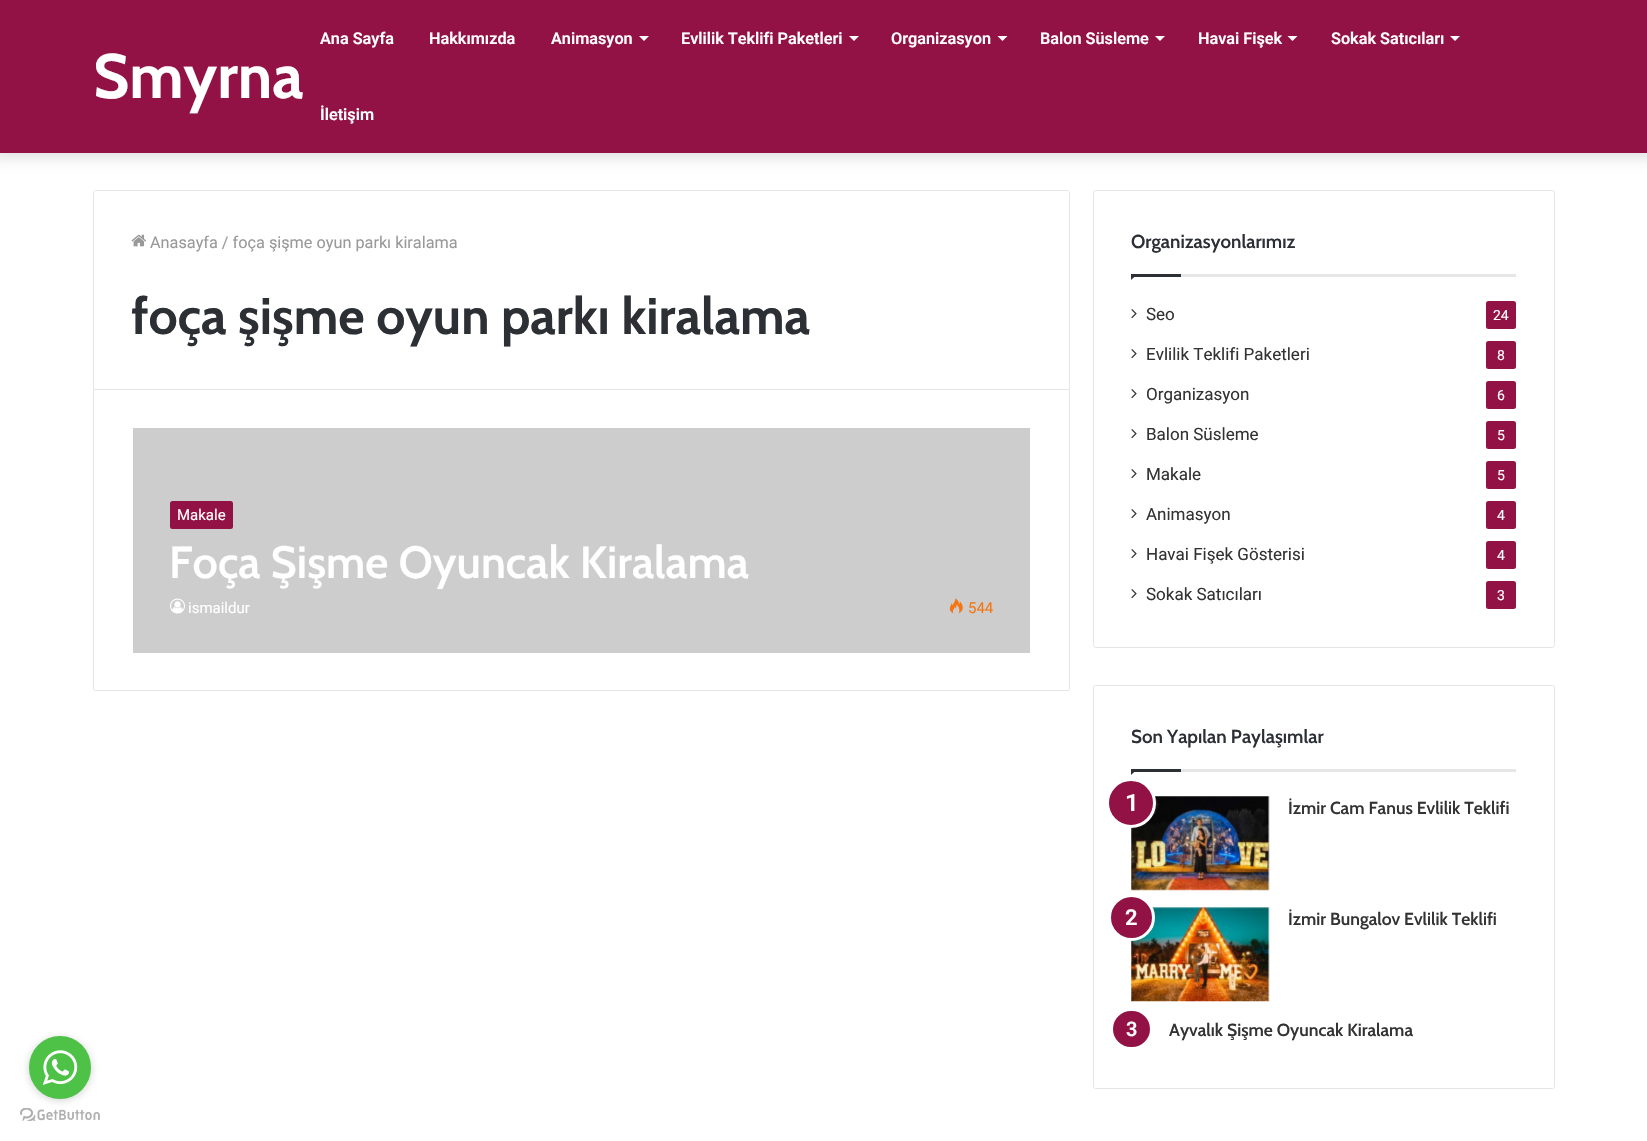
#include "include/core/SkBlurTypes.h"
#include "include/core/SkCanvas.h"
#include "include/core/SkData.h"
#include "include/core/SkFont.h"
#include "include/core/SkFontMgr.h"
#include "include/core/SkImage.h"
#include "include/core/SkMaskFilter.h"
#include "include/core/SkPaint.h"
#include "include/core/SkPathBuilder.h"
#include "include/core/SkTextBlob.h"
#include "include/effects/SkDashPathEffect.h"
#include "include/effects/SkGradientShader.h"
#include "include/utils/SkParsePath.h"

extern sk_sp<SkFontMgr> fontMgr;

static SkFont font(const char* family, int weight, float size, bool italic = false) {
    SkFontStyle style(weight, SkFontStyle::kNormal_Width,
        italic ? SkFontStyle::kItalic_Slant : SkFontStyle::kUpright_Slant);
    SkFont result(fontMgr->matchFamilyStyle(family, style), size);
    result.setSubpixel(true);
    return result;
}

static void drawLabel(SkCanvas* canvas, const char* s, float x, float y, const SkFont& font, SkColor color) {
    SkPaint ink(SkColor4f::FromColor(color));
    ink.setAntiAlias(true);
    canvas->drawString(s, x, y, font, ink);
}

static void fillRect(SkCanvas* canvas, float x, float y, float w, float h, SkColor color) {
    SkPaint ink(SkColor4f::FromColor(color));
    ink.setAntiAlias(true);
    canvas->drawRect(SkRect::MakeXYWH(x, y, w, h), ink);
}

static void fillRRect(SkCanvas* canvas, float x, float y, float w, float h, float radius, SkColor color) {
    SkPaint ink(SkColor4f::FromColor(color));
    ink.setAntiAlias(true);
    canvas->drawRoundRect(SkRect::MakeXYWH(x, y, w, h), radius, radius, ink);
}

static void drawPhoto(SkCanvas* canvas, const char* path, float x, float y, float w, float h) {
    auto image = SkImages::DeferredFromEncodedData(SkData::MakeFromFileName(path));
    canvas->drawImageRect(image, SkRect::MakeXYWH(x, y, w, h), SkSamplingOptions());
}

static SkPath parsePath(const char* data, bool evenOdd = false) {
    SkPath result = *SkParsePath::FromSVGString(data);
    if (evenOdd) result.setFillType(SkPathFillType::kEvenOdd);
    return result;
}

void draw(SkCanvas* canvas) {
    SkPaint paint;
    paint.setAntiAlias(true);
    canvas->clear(0xFFFFFFFF);
    paint.setColor(0x1A000000);
    paint.setMaskFilter(SkMaskFilter::MakeBlur(kNormal_SkBlurStyle, 6));
    canvas->drawRect(SkRect::MakeXYWH(-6, -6, 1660, 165), paint);
    paint.setMaskFilter(nullptr);
    fillRect(canvas, 0, 0, 1647, 153, 0xFF921245);
    SkFont font1 = font("Cabin", 700, 62.5f);
    drawLabel(canvas, "Smyrna", 93, 98, font1, 0xFFFFFFFF);
    SkFont font2 = font("Roboto", 600, 16.25f);
    drawLabel(canvas, "Ana Sayfa", 320, 44, font2, 0xFFFFFFFF);
    drawLabel(canvas, "Hakkımızda", 429, 44, font2, 0xFFFFFFFF);
    drawLabel(canvas, "Animasyon", 551, 44, font2, 0xFFFFFFFF);
    paint.setColor(0xFFFFFFFF);
    canvas->drawPath(parsePath("M639 36H649L644 41Z"), paint);
    drawLabel(canvas, "Evlilik Teklifi Paketleri", 681, 44, font2, 0xFFFFFFFF);
    canvas->drawPath(parsePath("M849 36H859L854 41Z"), paint);
    drawLabel(canvas, "Organizasyon", 891, 44, font2, 0xFFFFFFFF);
    canvas->drawPath(parsePath("M997.5 36H1007.5L1002.5 41Z"), paint);
    drawLabel(canvas, "Balon Süsleme", 1040, 44, font2, 0xFFFFFFFF);
    canvas->drawPath(parsePath("M1155 36H1165L1160 41Z"), paint);
    drawLabel(canvas, "Havai Fişek", 1198, 44, font2, 0xFFFFFFFF);
    canvas->drawPath(parsePath("M1287.5 36H1297.5L1292.5 41Z"), paint);
    drawLabel(canvas, "Sokak Satıcıları", 1331, 44, font2, 0xFFFFFFFF);
    canvas->drawPath(parsePath("M1450 36H1460L1455 41Z"), paint);
    drawLabel(canvas, "İletişim", 320, 120, font2, 0xFFFFFFFF);
    paint.setStroke(true);
    paint.setStrokeWidth(1);
    paint.setColor(0xFFE6E6E6);
    canvas->drawPath(parsePath("M95.5 190.5H1067.5C1068.5 190.5 1069.5 191.5 1069.5 192.5V389.5H93.5V192.5C93.5 191.5 94.5 190.5 95.5 190.5Z"), paint);
    drawPhoto(canvas, "assets/img1.png", 131, 234, 15, 13);
    SkFont font3 = font("Roboto", 400, 16.25f);
    drawLabel(canvas, "Anasayfa / foça şişme oyun parkı kiralama", 150, 248, font3, 0xFF999999);
    SkFont font4 = font("Cabin", 700, 51.25f);
    drawLabel(canvas, "foça şişme oyun parkı kiralama", 131, 334, font4, 0xFF2C2F34);
    fillRect(canvas, 1069, 390, 1, 300, 0xFFE6E6E6);
    fillRect(canvas, 94, 690, 975, 1, 0xFFE6E6E6);
    fillRect(canvas, 93, 390, 1, 300, 0xFFE6E6E6);
    fillRect(canvas, 133, 428, 897, 225, 0xFFCDCDCD);
    fillRRect(canvas, 170, 501, 63, 28, 2.5f, 0xFF921245);
    SkFont font5 = font("Roboto", 400, 15);
    drawLabel(canvas, "Makale", 177, 520, font5, 0xFFFFFFFF);
    SkFont font6 = font("Cabin", 600, 45);
    drawLabel(canvas, "Foça Şişme Oyuncak Kiralama", 169, 578, font6, 0xFFFFFFFF);
    drawPhoto(canvas, "assets/img2.png", 170, 598, 15, 16);
    drawLabel(canvas, "ismaildur", 188, 613, font5, 0xFFFFFFFF);
    drawPhoto(canvas, "assets/img3.png", 949, 598, 14, 16);
    drawLabel(canvas, "544", 968, 613, font5, 0xFFF47512);
    canvas->drawRoundRect(SkRect::MakeXYWH(1093.5f, 190.5f, 461, 457), 2, 2, paint);
    fillRect(canvas, 1181, 274, 335, 3, 0xFFE6E6E6);
    SkFont font7 = font("Cabin", 600, 18.75f);
    drawLabel(canvas, "Organizasyonlarımız", 1131, 248, font7, 0xFF2C2F34);
    paint.setStroke(false);
    paint.setColor(0xFF2C2F34);
    canvas->drawPath(parsePath("M1131 274H1137.5L1131 280Z"), paint);
    fillRect(canvas, 1131, 274, 50, 3, 0xFF2C2F34);
    drawPhoto(canvas, "assets/img4.png", 1131, 309, 6, 10);
    SkFont font8 = font("Roboto", 400, 17);
    drawLabel(canvas, "Seo", 1146, 320, font8, 0xFF333333);
    fillRRect(canvas, 1486, 301, 30, 28, 2.5f, 0xFF921245);
    SkFont font9 = font("Roboto", 400, 14);
    drawLabel(canvas, "24", 1493, 320, font9, 0xFFFFFFFF);
    drawPhoto(canvas, "assets/img4.png", 1131, 349, 6, 10);
    drawLabel(canvas, "Evlilik Teklifi Paketleri", 1146, 360, font8, 0xFF333333);
    fillRRect(canvas, 1486, 341, 30, 28, 2.5f, 0xFF921245);
    drawLabel(canvas, "8", 1497, 360, font9, 0xFFFFFFFF);
    drawPhoto(canvas, "assets/img4.png", 1131, 389, 6, 10);
    drawLabel(canvas, "Organizasyon", 1146, 400, font8, 0xFF333333);
    fillRRect(canvas, 1486, 381, 30, 28, 2.5f, 0xFF921245);
    drawLabel(canvas, "6", 1497, 400, font9, 0xFFFFFFFF);
    drawPhoto(canvas, "assets/img4.png", 1131, 429, 6, 10);
    drawLabel(canvas, "Balon Süsleme", 1146, 440, font8, 0xFF333333);
    fillRRect(canvas, 1486, 421, 30, 28, 2.5f, 0xFF921245);
    drawLabel(canvas, "5", 1497, 440, font9, 0xFFFFFFFF);
    drawPhoto(canvas, "assets/img4.png", 1131, 469, 6, 10);
    drawLabel(canvas, "Makale", 1146, 480, font8, 0xFF333333);
    fillRRect(canvas, 1486, 461, 30, 28, 2.5f, 0xFF921245);
    drawLabel(canvas, "5", 1497, 480, font9, 0xFFFFFFFF);
    drawPhoto(canvas, "assets/img4.png", 1131, 509, 6, 10);
    drawLabel(canvas, "Animasyon", 1146, 520, font8, 0xFF333333);
    fillRRect(canvas, 1486, 501, 30, 28, 2.5f, 0xFF921245);
    drawLabel(canvas, "4", 1497, 520, font9, 0xFFFFFFFF);
    drawPhoto(canvas, "assets/img4.png", 1131, 549, 6, 10);
    drawLabel(canvas, "Havai Fişek Gösterisi", 1146, 560, font8, 0xFF333333);
    fillRRect(canvas, 1486, 541, 30, 28, 2.5f, 0xFF921245);
    drawLabel(canvas, "4", 1497, 560, font9, 0xFFFFFFFF);
    drawPhoto(canvas, "assets/img4.png", 1131, 589, 6, 10);
    drawLabel(canvas, "Sokak Satıcıları", 1146, 600, font8, 0xFF333333);
    fillRRect(canvas, 1486, 581, 30, 28, 2.5f, 0xFF921245);
    drawLabel(canvas, "3", 1497, 600, font9, 0xFFFFFFFF);
    paint.setStroke(true);
    paint.setColor(0xFFE6E6E6);
    canvas->drawRoundRect(SkRect::MakeXYWH(1093.5f, 685.5f, 461, 403), 2, 2, paint);
    fillRect(canvas, 1181, 769, 335, 3, 0xFFE6E6E6);
    drawLabel(canvas, "Son Yapılan Paylaşımlar", 1131, 743, font7, 0xFF2C2F34);
    paint.setStroke(false);
    paint.setColor(0xFF2C2F34);
    canvas->drawPath(parsePath("M1131 769H1137.5L1131 775Z"), paint);
    fillRect(canvas, 1131, 769, 50, 3, 0xFF2C2F34);
    drawPhoto(canvas, "assets/img5.png", 1131, 796, 139, 95);
    paint.setColor(0xFF921245);
    canvas->drawCircle(1131, 803, 23.5f, paint);
    paint.setStroke(true);
    paint.setStrokeWidth(3);
    paint.setColor(0xFFFFFFFF);
    canvas->drawCircle(1131, 803, 23.5f, paint);
    SkFont font10 = font("Roboto", 600, 24);
    drawLabel(canvas, "1", 1125, 811, font10, 0xFFFFFFFF);
    SkFont font11 = font("Cabin", 600, 17.5f);
    drawLabel(canvas, "İzmir Cam Fanus Evlilik Teklifi", 1288, 814, font11, 0xFF333333);
    drawPhoto(canvas, "assets/img6.png", 1131, 907, 139, 95);
    paint.setStroke(false);
    paint.setColor(0xFF921245);
    canvas->drawCircle(1131.5f, 917.5f, 22, paint);
    paint.setStroke(true);
    paint.setColor(0xFFFFFFFF);
    canvas->drawCircle(1131.5f, 917.5f, 22, paint);
    SkFont font12 = font("Roboto", 600, 22);
    drawLabel(canvas, "2", 1125, 925, font12, 0xFFFFFFFF);
    drawLabel(canvas, "İzmir Bungalov Evlilik Teklifi", 1288, 925, font11, 0xFF333333);
    paint.setStroke(false);
    paint.setColor(0xFF921245);
    canvas->drawRoundRect(SkRect::MakeXYWH(1111.5f, 1009.5f, 40, 39), 19.5f, 19.5f, paint);
    paint.setStroke(true);
    paint.setColor(0xFFFFFFFF);
    canvas->drawRoundRect(SkRect::MakeXYWH(1111.5f, 1009.5f, 40, 39), 19.5f, 19.5f, paint);
    SkFont font13 = font("Roboto", 600, 20);
    drawLabel(canvas, "3", 1126, 1036, font13, 0xFFFFFFFF);
    drawLabel(canvas, "Ayvalık Şişme Oyuncak Kiralama", 1169, 1036, font11, 0xFF333333);
    drawPhoto(canvas, "assets/img8.png", 20, 1108, 80, 13);
    paint.setStroke(false);
    paint.setColor(0x66888888);
    paint.setMaskFilter(SkMaskFilter::MakeBlur(kNormal_SkBlurStyle, 4.5f));
    canvas->drawRoundRect(SkRect::MakeXYWH(29, 1038, 62, 62), 31, 31, paint);
    paint.setMaskFilter(nullptr);
    fillRRect(canvas, 29, 1036, 62, 63, 31, 0xFF4DC247);
    drawPhoto(canvas, "assets/img7.png", 42, 1050, 36, 35);
}
